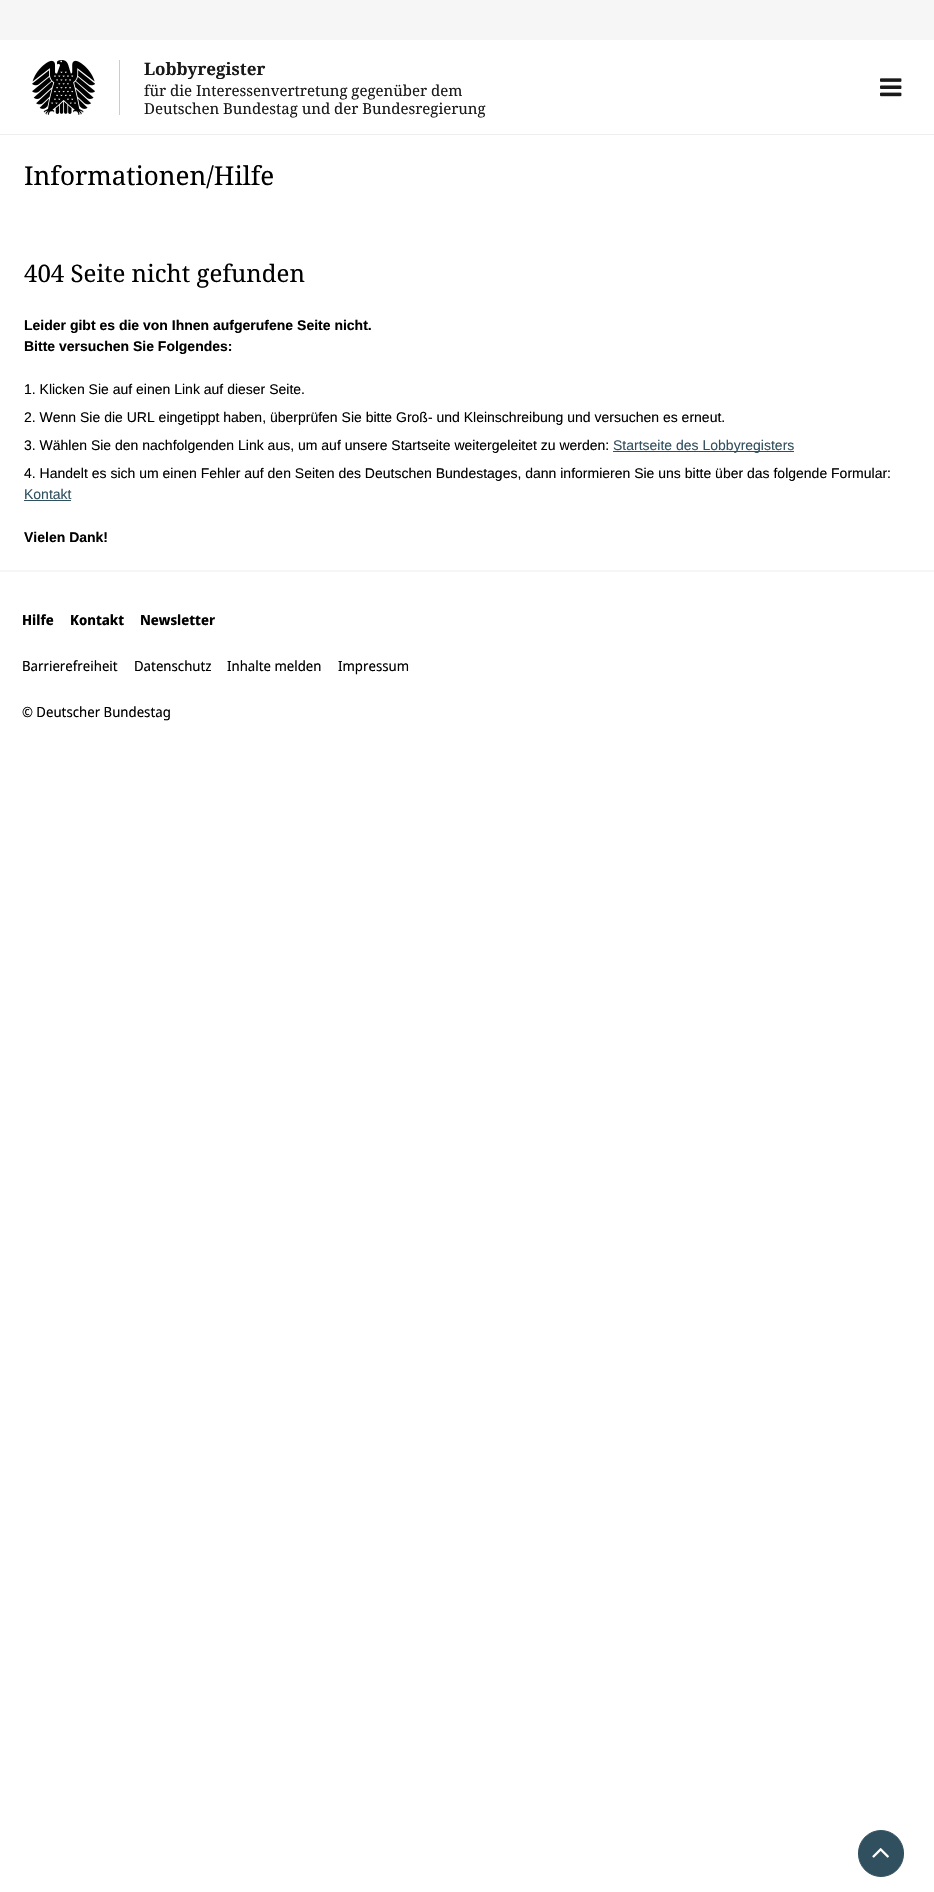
#include "include/core/SkBlurTypes.h"
#include "include/core/SkCanvas.h"
#include "include/core/SkData.h"
#include "include/core/SkFont.h"
#include "include/core/SkFontMgr.h"
#include "include/core/SkImage.h"
#include "include/core/SkMaskFilter.h"
#include "include/core/SkPaint.h"
#include "include/core/SkPathBuilder.h"
#include "include/core/SkTextBlob.h"
#include "include/effects/SkDashPathEffect.h"
#include "include/effects/SkGradientShader.h"
#include "include/utils/SkParsePath.h"

extern sk_sp<SkFontMgr> fontMgr;

static SkFont font(const char* family, int weight, float size, bool italic = false) {
    SkFontStyle style(weight, SkFontStyle::kNormal_Width,
        italic ? SkFontStyle::kItalic_Slant : SkFontStyle::kUpright_Slant);
    SkFont result(fontMgr->matchFamilyStyle(family, style), size);
    result.setSubpixel(true);
    return result;
}

static void drawLabel(SkCanvas* canvas, const char* s, float x, float y, const SkFont& font, SkColor color) {
    SkPaint ink(SkColor4f::FromColor(color));
    ink.setAntiAlias(true);
    canvas->drawString(s, x, y, font, ink);
}

static void fillRect(SkCanvas* canvas, float x, float y, float w, float h, SkColor color) {
    SkPaint ink(SkColor4f::FromColor(color));
    ink.setAntiAlias(true);
    canvas->drawRect(SkRect::MakeXYWH(x, y, w, h), ink);
}

static void drawPhoto(SkCanvas* canvas, const char* path, float x, float y, float w, float h) {
    auto image = SkImages::DeferredFromEncodedData(SkData::MakeFromFileName(path));
    canvas->drawImageRect(image, SkRect::MakeXYWH(x, y, w, h), SkSamplingOptions());
}

void draw(SkCanvas* canvas) {
    SkPaint paint;
    paint.setAntiAlias(true);
    canvas->clear(0xFFFFFFFF);
    fillRect(canvas, 0, 0, 934, 40, 0xFFF6F6F6);
    fillRect(canvas, 0, 134, 934, 1, 0xFFEEEEEE);
    drawPhoto(canvas, "assets/img1.png", 32, 60, 63, 55);
    fillRect(canvas, 119, 60, 1, 55, 0xFFCCCCCC);
    SkFont font1 = font("Noto Serif", 700, 17);
    drawLabel(canvas, "Lobbyregister", 144, 75, font1, 0xFF191919);
    SkFont font2 = font("Noto Serif", 400, 15);
    drawLabel(canvas, "für die Interessenvertretung gegenüber dem", 144, 96, font2, 0xFF191919);
    drawLabel(canvas, "Deutschen Bundestag und der Bundesregierung", 144, 114, font2, 0xFF191919);
    drawPhoto(canvas, "assets/img2.png", 880, 78, 22, 19);
    SkFont font3 = font("Noto Serif", 400, 26);
    drawLabel(canvas, "Informationen/Hilfe", 24, 185, font3, 0xFF000000);
    SkFont font4 = font("Noto Serif", 400, 24);
    drawLabel(canvas, "404 Seite nicht gefunden", 24, 282, font4, 0xFF000000);
    SkFont font5 = font("Liberation Sans", 700, 14);
    drawLabel(canvas, "Leider gibt es die von Ihnen aufgerufene Seite nicht.", 24, 330, font5, 0xFF000000);
    drawLabel(canvas, "Bitte versuchen Sie Folgendes:", 24, 351, font5, 0xFF000000);
    SkFont font6 = font("Liberation Sans", 400, 14);
    drawLabel(canvas, "1. Klicken Sie auf einen Link auf dieser Seite.", 24, 394, font6, 0xFF000000);
    drawLabel(canvas, "2. Wenn Sie die URL eingetippt haben, überprüfen Sie bitte Groß- und Kleinschreibung und versuchen es erneut.", 24, 422, font6, 0xFF000000);
    drawLabel(canvas, "3. Wählen Sie den nachfolgenden Link aus, um auf unsere Startseite weitergeleitet zu werden:", 24, 450, font6, 0xFF000000);
    fillRect(canvas, 613, 451, 181, 1, 0xFF31505F);
    drawLabel(canvas, "Startseite des Lobbyregisters", 613, 450, font6, 0xFF31505F);
    drawLabel(canvas, "4. Handelt es sich um einen Fehler auf den Seiten des Deutschen Bundestages, dann informieren Sie uns bitte über das folgende Formular:", 24, 478, font6, 0xFF000000);
    drawLabel(canvas, "Kontakt", 24, 499, font6, 0xFF31505F);
    fillRect(canvas, 24, 500, 47, 1, 0xFF31505F);
    drawLabel(canvas, "Vielen Dank!", 24, 542, font5, 0xFF000000);
    paint.setColor(0xFF31505F);
    canvas->drawRoundRect(SkRect::MakeXYWH(858.5f, 1830.5f, 45, 46), 22.5f, 22.5f, paint);
    paint.setStroke(true);
    paint.setStrokeWidth(1);
    canvas->drawRoundRect(SkRect::MakeXYWH(858.5f, 1830.5f, 45, 46), 22.5f, 22.5f, paint);
    drawPhoto(canvas, "assets/img3.png", 872, 1848, 17, 10);
    fillRect(canvas, 0, 570, 934, 2, 0xFFF6F6F6);
    SkFont font7 = font("Noto Sans Display", 700, 14);
    drawLabel(canvas, "Hilfe", 22, 625, font7, 0xFF000000);
    drawLabel(canvas, "Kontakt", 70, 625, font7, 0xFF000000);
    drawLabel(canvas, "Newsletter", 140, 625, font7, 0xFF000000);
    SkFont font8 = font("Noto Sans Display", 400, 14);
    drawLabel(canvas, "Barrierefreiheit", 22, 671, font8, 0xFF000000);
    drawLabel(canvas, "Datenschutz", 134, 671, font8, 0xFF000000);
    drawLabel(canvas, "Inhalte melden", 227, 671, font8, 0xFF000000);
    drawLabel(canvas, "Impressum", 338, 671, font8, 0xFF000000);
    drawLabel(canvas, "© Deutscher Bundestag", 22, 717, font8, 0xFF000000);
}
